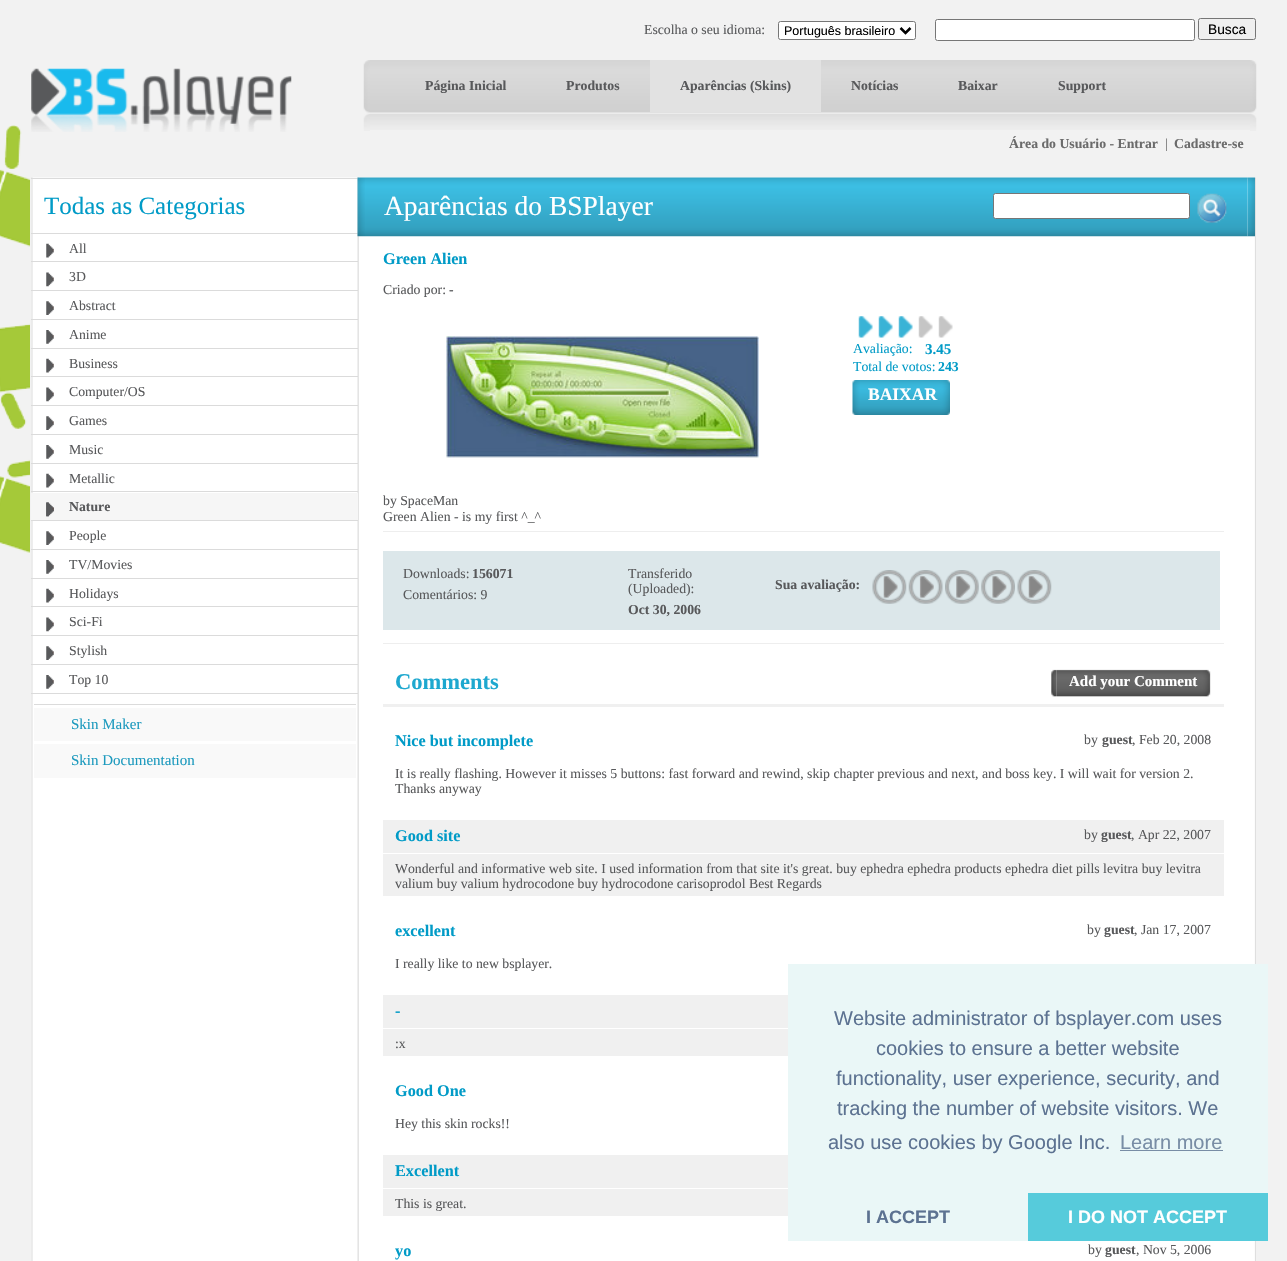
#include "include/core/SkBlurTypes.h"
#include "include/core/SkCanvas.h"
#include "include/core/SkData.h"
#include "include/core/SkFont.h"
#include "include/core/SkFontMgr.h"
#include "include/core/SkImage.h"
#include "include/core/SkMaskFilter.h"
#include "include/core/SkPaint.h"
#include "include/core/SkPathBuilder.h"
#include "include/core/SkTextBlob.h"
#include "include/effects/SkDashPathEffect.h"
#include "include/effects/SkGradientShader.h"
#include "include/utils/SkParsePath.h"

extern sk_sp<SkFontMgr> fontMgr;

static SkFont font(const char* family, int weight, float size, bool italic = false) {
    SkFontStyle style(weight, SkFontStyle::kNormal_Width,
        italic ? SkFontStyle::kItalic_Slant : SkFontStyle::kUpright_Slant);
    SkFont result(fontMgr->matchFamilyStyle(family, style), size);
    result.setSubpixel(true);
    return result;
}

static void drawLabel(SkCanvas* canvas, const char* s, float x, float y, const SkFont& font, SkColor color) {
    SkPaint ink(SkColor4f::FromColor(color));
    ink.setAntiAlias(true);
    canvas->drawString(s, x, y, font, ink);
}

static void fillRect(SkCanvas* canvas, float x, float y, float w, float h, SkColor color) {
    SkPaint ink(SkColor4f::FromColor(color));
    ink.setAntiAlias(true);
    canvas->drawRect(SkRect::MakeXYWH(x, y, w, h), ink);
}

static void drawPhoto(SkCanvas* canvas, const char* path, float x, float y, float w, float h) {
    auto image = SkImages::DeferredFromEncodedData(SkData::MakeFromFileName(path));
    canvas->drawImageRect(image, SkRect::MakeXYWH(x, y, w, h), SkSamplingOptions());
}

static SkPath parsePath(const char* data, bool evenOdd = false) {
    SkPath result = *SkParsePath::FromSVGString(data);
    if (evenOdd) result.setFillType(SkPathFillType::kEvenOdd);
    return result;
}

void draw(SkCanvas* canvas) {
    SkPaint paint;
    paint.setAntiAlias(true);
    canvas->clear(0xFFF2F2F2);
    drawPhoto(canvas, "assets/img1.png", 31, 68, 261, 64);
    SkFont font1 = font("Liberation Serif", 400, 13.75f);
    drawLabel(canvas, "Escolha o seu idioma:", 644, 34, font1, 0xFF58595B);
    paint.setColor(0xFFFFFFFF);
    canvas->drawRoundRect(SkRect::MakeXYWH(778.5f, 21.5f, 137, 18), 2, 2, paint);
    paint.setStroke(true);
    paint.setStrokeWidth(1);
    paint.setColor(0xFF767676);
    canvas->drawRoundRect(SkRect::MakeXYWH(778.5f, 21.5f, 137, 18), 2, 2, paint);
    paint.setStrokeWidth(2.5f);
    paint.setColor(0xFF000000);
    canvas->drawPath(parsePath("M900.5 28L905.5 33L910.5 28"), paint);
    SkFont font2 = font("Liberation Sans", 400, 12.5f);
    drawLabel(canvas, "Português brasileiro", 784, 35, font2, 0xFF000000);
    paint.setStroke(false);
    paint.setColor(0xFFFFFFFF);
    canvas->drawRoundRect(SkRect::MakeXYWH(935.5f, 19.5f, 259, 21), 2, 2, paint);
    paint.setStroke(true);
    paint.setStrokeWidth(1);
    paint.setColor(0xFF767676);
    canvas->drawRoundRect(SkRect::MakeXYWH(935.5f, 19.5f, 259, 21), 2, 2, paint);
    paint.setStroke(false);
    paint.setColor(0xFFEFEFEF);
    canvas->drawRoundRect(SkRect::MakeXYWH(1198.5f, 18.5f, 57, 21), 2, 2, paint);
    paint.setStroke(true);
    paint.setColor(0xFF767676);
    canvas->drawRoundRect(SkRect::MakeXYWH(1198.5f, 18.5f, 57, 21), 2, 2, paint);
    SkFont font3 = font("Liberation Sans", 400, 13.75f);
    drawLabel(canvas, "Busca", 1208, 34, font3, 0xFF000000);
    drawPhoto(canvas, "assets/img2.png", 363, 60, 7, 71);
    drawPhoto(canvas, "assets/img3.png", 1250, 60, 7, 71);
    drawPhoto(canvas, "assets/img4.png", 370, 60, 880, 70);
    SkFont font4 = font("Liberation Serif", 700, 13.75f);
    drawLabel(canvas, "Página Inicial", 425, 90, font4, 0xFF58595B);
    drawLabel(canvas, "Produtos", 566, 90, font4, 0xFF58595B);
    fillRect(canvas, 650, 60, 171, 52, 0xFFE2E2E2);
    drawLabel(canvas, "Aparências (Skins)", 680, 90, font4, 0xFF58595B);
    drawLabel(canvas, "Notícias", 851, 90, font4, 0xFF58595B);
    drawLabel(canvas, "Baixar", 958, 90, font4, 0xFF58595B);
    drawLabel(canvas, "Support", 1058, 90, font4, 0xFF58595B);
    drawLabel(canvas, "Área do Usuário - Entrar", 1009, 148, font4, 0xFF6B6B6B);
    drawLabel(canvas, "|", 1165, 148, font1, 0xFF6B6B6B);
    drawLabel(canvas, "Cadastre-se", 1174, 148, font4, 0xFF6B6B6B);
    drawPhoto(canvas, "assets/img5.png", 0, 125, 30, 428);
    fillRect(canvas, 31, 179, 1, 1082, 0xFFFFFFFF);
    drawPhoto(canvas, "assets/img6.png", 31, 177, 1225, 1084);
    fillRect(canvas, 31, 178, 1225, 1, 0xFFDBDBDB);
    fillRect(canvas, 31, 233, 327, 1, 0xFFDBDBDB);
    SkFont font5 = font("Liberation Serif", 400, 25);
    drawLabel(canvas, "Todas as Categorias", 44, 214, font5, 0xFF019BC7);
    drawPhoto(canvas, "assets/img7.png", 46, 243, 8, 15);
    fillRect(canvas, 31, 261, 327, 1, 0xFFDBDBDB);
    drawLabel(canvas, "All", 69, 253, font1, 0xFF58595B);
    drawPhoto(canvas, "assets/img8.png", 46, 272, 8, 15);
    fillRect(canvas, 31, 290, 327, 1, 0xFFDBDBDB);
    drawLabel(canvas, "3D", 69, 281, font1, 0xFF58595B);
    drawPhoto(canvas, "assets/img9.png", 46, 301, 8, 14);
    fillRect(canvas, 31, 319, 327, 1, 0xFFDBDBDB);
    drawLabel(canvas, "Abstract", 69, 310, font1, 0xFF58595B);
    drawPhoto(canvas, "assets/img10.png", 46, 330, 8, 14);
    fillRect(canvas, 31, 348, 327, 1, 0xFFDBDBDB);
    drawLabel(canvas, "Anime", 69, 339, font1, 0xFF58595B);
    drawPhoto(canvas, "assets/img7.png", 46, 358, 8, 15);
    fillRect(canvas, 31, 376, 327, 1, 0xFFDBDBDB);
    drawLabel(canvas, "Business", 69, 368, font1, 0xFF58595B);
    drawPhoto(canvas, "assets/img8.png", 46, 387, 8, 15);
    fillRect(canvas, 31, 405, 327, 1, 0xFFDBDBDB);
    drawLabel(canvas, "Computer/OS", 69, 396, font1, 0xFF58595B);
    drawPhoto(canvas, "assets/img9.png", 46, 416, 8, 14);
    fillRect(canvas, 31, 434, 327, 1, 0xFFDBDBDB);
    drawLabel(canvas, "Games", 69, 425, font1, 0xFF58595B);
    drawPhoto(canvas, "assets/img10.png", 46, 445, 8, 14);
    fillRect(canvas, 31, 463, 327, 1, 0xFFDBDBDB);
    drawLabel(canvas, "Music", 69, 454, font1, 0xFF58595B);
    drawPhoto(canvas, "assets/img7.png", 46, 473, 8, 15);
    fillRect(canvas, 31, 491, 327, 1, 0xFFDBDBDB);
    drawLabel(canvas, "Metallic", 69, 483, font1, 0xFF58595B);
    fillRect(canvas, 31, 493, 327, 27, 0xFFF6F6F6);
    drawPhoto(canvas, "assets/img11.png", 46, 502, 8, 15);
    drawPhoto(canvas, "assets/img12.png", 46, 502, 8, 15);
    fillRect(canvas, 31, 520, 327, 1, 0xFFDBDBDB);
    drawLabel(canvas, "Nature", 69, 511, font4, 0xFF58595B);
    drawPhoto(canvas, "assets/img9.png", 46, 531, 8, 14);
    fillRect(canvas, 31, 549, 327, 1, 0xFFDBDBDB);
    drawLabel(canvas, "People", 69, 540, font1, 0xFF58595B);
    drawPhoto(canvas, "assets/img10.png", 46, 560, 8, 14);
    fillRect(canvas, 31, 578, 327, 1, 0xFFDBDBDB);
    drawLabel(canvas, "TV/Movies", 69, 569, font1, 0xFF58595B);
    drawPhoto(canvas, "assets/img7.png", 46, 588, 8, 15);
    fillRect(canvas, 31, 606, 327, 1, 0xFFDBDBDB);
    drawLabel(canvas, "Holidays", 69, 598, font1, 0xFF58595B);
    drawPhoto(canvas, "assets/img8.png", 46, 617, 8, 15);
    fillRect(canvas, 31, 635, 327, 1, 0xFFDBDBDB);
    drawLabel(canvas, "Sci-Fi", 69, 626, font1, 0xFF58595B);
    drawPhoto(canvas, "assets/img9.png", 46, 646, 8, 14);
    fillRect(canvas, 31, 664, 327, 1, 0xFFDBDBDB);
    drawLabel(canvas, "Stylish", 69, 655, font1, 0xFF58595B);
    drawPhoto(canvas, "assets/img10.png", 46, 675, 8, 14);
    fillRect(canvas, 31, 693, 327, 1, 0xFFDBDBDB);
    drawLabel(canvas, "Top 10", 69, 684, font1, 0xFF58595B);
    fillRect(canvas, 34, 704, 322, 1, 0xFFDBDBDB);
    fillRect(canvas, 34, 708, 322, 33, 0xFFF9F9F9);
    SkFont font6 = font("Liberation Serif", 400, 15);
    drawLabel(canvas, "Skin Maker", 71, 729, font6, 0xFF1D9ABE);
    fillRect(canvas, 34, 744, 322, 34, 0xFFF9F9F9);
    drawLabel(canvas, "Skin Documentation", 71, 765, font6, 0xFF1D9ABE);
    drawPhoto(canvas, "assets/img13.png", 357, 177, 8, 60);
    drawPhoto(canvas, "assets/img14.png", 1247, 177, 8, 60);
    drawPhoto(canvas, "assets/img15.png", 365, 177, 883, 60);
    SkFont font7 = font("Liberation Serif", 400, 27.5f);
    drawLabel(canvas, "Aparências do BSPlayer", 384, 215, font7, 0xFFFFFFFF);
    paint.setStroke(false);
    paint.setColor(0xFFFFFFFF);
    canvas->drawRoundRect(SkRect::MakeXYWH(993.5f, 193.5f, 196, 25), 2, 2, paint);
    paint.setStroke(true);
    paint.setColor(0xFF767676);
    canvas->drawRoundRect(SkRect::MakeXYWH(993.5f, 193.5f, 196, 25), 2, 2, paint);
    drawPhoto(canvas, "assets/img16.png", 1197, 193, 30, 30);
    SkFont font8 = font("Liberation Serif", 700, 16.25f);
    drawLabel(canvas, "Green Alien", 383, 264, font8, 0xFF019BC7);
    drawLabel(canvas, "Criado por:", 383, 294, font1, 0xFF58595B);
    drawLabel(canvas, "-", 449, 294, font4, 0xFF58595B);
    drawPhoto(canvas, "assets/img17.png", 446, 336, 313, 122);
    drawPhoto(canvas, "assets/img18.png", 858, 316, 15, 22);
    drawPhoto(canvas, "assets/img18.png", 878, 316, 15, 22);
    drawPhoto(canvas, "assets/img18.png", 898, 316, 15, 22);
    drawPhoto(canvas, "assets/img19.png", 918, 316, 15, 22);
    drawPhoto(canvas, "assets/img19.png", 938, 316, 15, 22);
    drawLabel(canvas, "Avaliação:", 853, 353, font1, 0xFF019BC7);
    SkFont font9 = font("Liberation Serif", 700, 15);
    drawLabel(canvas, "3.45", 925, 354, font9, 0xFF019BC7);
    drawLabel(canvas, "Total de votos:", 853, 371, font1, 0xFF019BC7);
    drawLabel(canvas, "243", 938, 371, font4, 0xFF019BC7);
    drawPhoto(canvas, "assets/img20.png", 852, 380, 8, 35);
    drawPhoto(canvas, "assets/img21.png", 860, 380, 90, 35);
    SkFont font10 = font("Liberation Serif", 700, 17.5f);
    drawLabel(canvas, "BAIXAR", 868, 400, font10, 0xFFFFFFFF);
    drawLabel(canvas, "by SpaceMan", 383, 505, font1, 0xFF58595B);
    drawLabel(canvas, "Green Alien - is my first ^_^", 383, 521, font1, 0xFF58595B);
    fillRect(canvas, 383, 531, 841, 1, 0xFFEEEEEE);
    fillRect(canvas, 383, 551, 837, 79, 0xFFDCE7EA);
    drawLabel(canvas, "Downloads:", 403, 578, font1, 0xFF58595B);
    drawLabel(canvas, "156071", 472, 578, font4, 0xFF58595B);
    drawLabel(canvas, "Comentários: 9", 403, 599, font1, 0xFF58595B);
    drawLabel(canvas, "Transferido", 628, 578, font1, 0xFF58595B);
    drawLabel(canvas, "(Uploaded):", 628, 593, font1, 0xFF58595B);
    drawLabel(canvas, "Oct 30, 2006", 628, 614, font4, 0xFF58595B);
    drawLabel(canvas, "Sua avaliação:", 775, 589, font4, 0xFF58595B);
    drawPhoto(canvas, "assets/img22.png", 872, 570, 35, 34);
    drawPhoto(canvas, "assets/img23.png", 908, 570, 35, 34);
    drawPhoto(canvas, "assets/img24.png", 945, 570, 34, 34);
    drawPhoto(canvas, "assets/img25.png", 981, 570, 34, 34);
    drawPhoto(canvas, "assets/img22.png", 1017, 570, 35, 34);
    fillRect(canvas, 383, 643, 841, 1, 0xFFEEEEEE);
    fillRect(canvas, 383, 704, 841, 3, 0xFFF0F0F0);
    SkFont font11 = font("Liberation Serif", 700, 22.5f);
    drawLabel(canvas, "Comments", 395, 689, font11, 0xFF1EA8CF);
    drawPhoto(canvas, "assets/img26.png", 1051, 669, 6, 28);
    drawPhoto(canvas, "assets/img27.png", 1056, 669, 155, 28);
    drawLabel(canvas, "Add your Comment", 1069, 686, font9, 0xFFFFFFFF);
    drawLabel(canvas, "Nice but incomplete", 395, 746, font8, 0xFF019BC7);
    drawLabel(canvas, "by", 1084, 744, font1, 0xFF58595B);
    drawLabel(canvas, "guest", 1102, 744, font4, 0xFF58595B);
    drawLabel(canvas, ", Feb 20, 2008", 1132, 744, font1, 0xFF58595B);
    drawLabel(canvas, "It is really flashing. However it misses 5 buttons: fast forward and rewind, skip chapter previous and next, and boss key. I will wait for version 2.", 395, 778, font1, 0xFF58595B);
    drawLabel(canvas, "Thanks anyway", 395, 793, font1, 0xFF58595B);
    fillRect(canvas, 383, 820, 841, 33, 0xFFF0F0F0);
    drawLabel(canvas, "Good site", 395, 841, font8, 0xFF019BC7);
    drawLabel(canvas, "by", 1084, 839, font1, 0xFF58595B);
    drawLabel(canvas, "guest", 1101, 839, font4, 0xFF58595B);
    drawLabel(canvas, ", Apr 22, 2007", 1131, 839, font1, 0xFF58595B);
    fillRect(canvas, 383, 854, 841, 42, 0xFFF0F0F0);
    drawLabel(canvas, "Wonderful and informative web site. I used information from that site it's great. buy ephedra ephedra products ephedra diet pills levitra buy levitra", 395, 873, font1, 0xFF58595B);
    drawLabel(canvas, "valium buy valium hydrocodone buy hydrocodone carisoprodol Best Regards", 395, 888, font1, 0xFF58595B);
    drawLabel(canvas, "excellent", 395, 936, font8, 0xFF019BC7);
    drawLabel(canvas, "by", 1087, 934, font1, 0xFF58595B);
    drawLabel(canvas, "guest", 1104, 934, font4, 0xFF58595B);
    drawLabel(canvas, ", Jan 17, 2007", 1134, 934, font1, 0xFF58595B);
    drawLabel(canvas, "I really like to new bsplayer.", 395, 968, font1, 0xFF58595B);
    fillRect(canvas, 383, 995, 405, 33, 0xFFF0F0F0);
    drawLabel(canvas, "-", 395, 1016, font8, 0xFF019BC7);
    fillRect(canvas, 383, 1029, 405, 27, 0xFFF0F0F0);
    drawLabel(canvas, ":x", 395, 1048, font1, 0xFF58595B);
    drawLabel(canvas, "Good One", 395, 1096, font8, 0xFF019BC7);
    drawLabel(canvas, "Hey this skin rocks!!", 395, 1128, font1, 0xFF58595B);
    fillRect(canvas, 383, 1155, 405, 33, 0xFFF0F0F0);
    drawLabel(canvas, "Excellent", 395, 1176, font8, 0xFF019BC7);
    fillRect(canvas, 383, 1189, 405, 27, 0xFFF0F0F0);
    drawLabel(canvas, "This is great.", 395, 1208, font1, 0xFF58595B);
    drawLabel(canvas, "yo", 395, 1256, font8, 0xFF019BC7);
    drawLabel(canvas, "by", 1088, 1254, font1, 0xFF58595B);
    drawLabel(canvas, "guest", 1105, 1254, font4, 0xFF58595B);
    drawLabel(canvas, ", Nov 5, 2006", 1136, 1254, font1, 0xFF58595B);
    fillRect(canvas, 788, 964, 480, 277, 0xFFEAF7F7);
    SkFont font12 = font("Liberation Sans", 400, 20);
    drawLabel(canvas, "Website administrator of bsplayer.com uses", 834, 1025, font12, 0xFF5C7291);
    drawLabel(canvas, "cookies to ensure a better website", 876, 1055, font12, 0xFF5C7291);
    drawLabel(canvas, "functionality, user experience, security, and", 836, 1085, font12, 0xFF5C7291);
    drawLabel(canvas, "tracking the number of website visitors. We", 837, 1115, font12, 0xFF5C7291);
    drawLabel(canvas, "also use cookies by Google Inc.", 828, 1149, font12, 0xFF5C7291);
    drawLabel(canvas, "Learn more", 1120, 1149, font12, 0xFF788DA5);
    fillRect(canvas, 1120, 1150, 103, 1, 0xFF788DA5);
    SkFont font13 = font("Liberation Sans", 700, 18);
    drawLabel(canvas, "I ACCEPT", 866, 1223, font13, 0xFF5C7291);
    fillRect(canvas, 1028, 1193, 240, 48, 0xFF56CBDB);
    drawLabel(canvas, "I DO NOT ACCEPT", 1068, 1223, font13, 0xFFFFFFFF);
}
